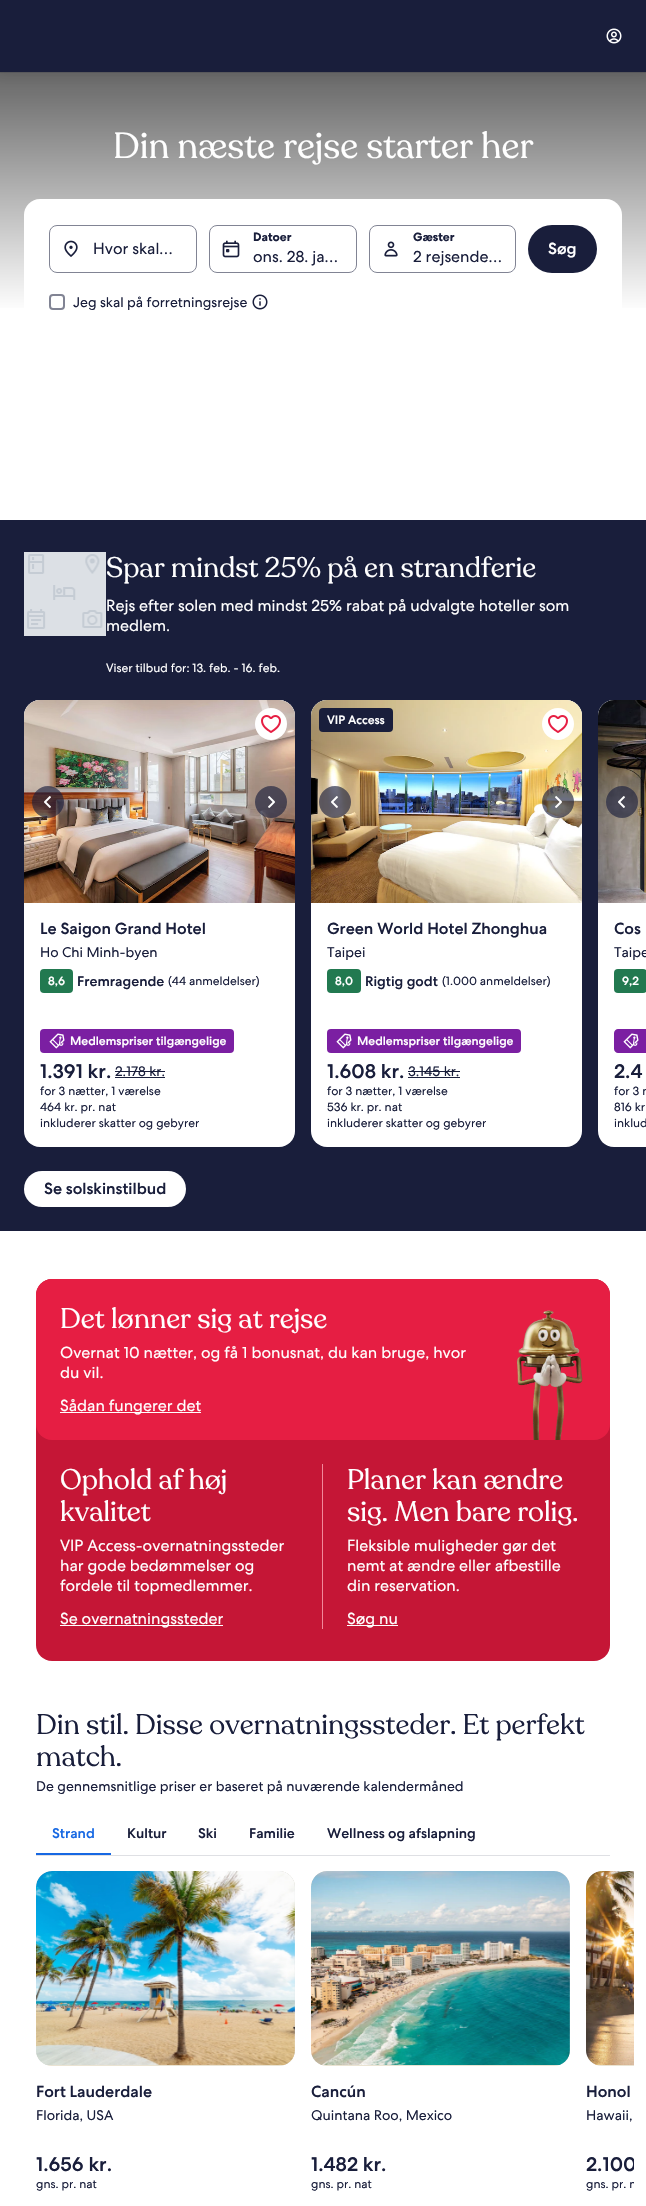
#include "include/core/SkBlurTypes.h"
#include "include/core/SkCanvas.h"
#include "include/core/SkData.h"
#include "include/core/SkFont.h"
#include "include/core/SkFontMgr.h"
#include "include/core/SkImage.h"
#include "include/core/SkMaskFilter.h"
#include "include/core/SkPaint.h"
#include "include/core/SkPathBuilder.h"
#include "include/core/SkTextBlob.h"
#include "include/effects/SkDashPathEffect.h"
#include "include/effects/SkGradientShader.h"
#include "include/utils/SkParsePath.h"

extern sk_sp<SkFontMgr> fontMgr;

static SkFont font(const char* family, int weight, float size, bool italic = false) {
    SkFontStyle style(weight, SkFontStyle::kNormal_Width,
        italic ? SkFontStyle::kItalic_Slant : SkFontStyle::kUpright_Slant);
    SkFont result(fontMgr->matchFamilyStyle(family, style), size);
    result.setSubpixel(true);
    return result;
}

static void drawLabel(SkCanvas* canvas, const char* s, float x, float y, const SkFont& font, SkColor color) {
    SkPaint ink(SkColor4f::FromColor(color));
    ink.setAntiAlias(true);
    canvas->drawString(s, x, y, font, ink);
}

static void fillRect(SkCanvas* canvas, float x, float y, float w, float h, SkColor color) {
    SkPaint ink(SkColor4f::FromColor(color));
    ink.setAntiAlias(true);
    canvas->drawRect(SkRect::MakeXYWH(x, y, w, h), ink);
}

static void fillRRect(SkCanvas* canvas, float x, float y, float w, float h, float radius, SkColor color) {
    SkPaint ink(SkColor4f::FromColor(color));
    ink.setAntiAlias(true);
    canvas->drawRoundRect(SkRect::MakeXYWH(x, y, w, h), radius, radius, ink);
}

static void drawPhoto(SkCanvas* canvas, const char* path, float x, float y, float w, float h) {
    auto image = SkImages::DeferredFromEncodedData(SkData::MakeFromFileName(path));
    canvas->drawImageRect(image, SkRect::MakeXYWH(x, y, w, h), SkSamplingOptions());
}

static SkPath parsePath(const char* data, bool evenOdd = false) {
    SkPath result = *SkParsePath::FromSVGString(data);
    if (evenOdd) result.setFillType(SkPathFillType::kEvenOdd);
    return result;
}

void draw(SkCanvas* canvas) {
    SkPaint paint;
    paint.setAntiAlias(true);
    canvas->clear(0xFFFFFFFF);
    fillRect(canvas, 0, 72, 646, 1, 0xFF5B5B5D);
    {
        const SkColor colors[] = {0xFFFFFFFF, 0xFF666666};
        const float stops[] = {0.4f, 1};
        const SkPoint ends[] = {{323, 472}, {323, 72}};
        paint.setShader(SkGradientShader::MakeLinear(ends, colors, stops, 2, SkTileMode::kClamp));
        paint.setAlpha(255);
    }
    canvas->drawRect(SkRect::MakeXYWH(0, 73, 646, 235), paint);
    paint.setShader(nullptr);
    paint.setColor(0x140C0E1C);
    paint.setMaskFilter(SkMaskFilter::MakeBlur(kNormal_SkBlurStyle, 6));
    canvas->drawRect(SkRect::MakeXYWH(0, 2, 646, 72), paint);
    paint.setMaskFilter(nullptr);
    fillRect(canvas, 0, 0, 646, 72, 0xFF191E3B);
    drawPhoto(canvas, "assets/img1.png", 606, 28, 16, 16);
    SkFont font1 = font("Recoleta", 400, 36);
    drawLabel(canvas, "Din næste rejse starter her", 113, 158, font1, 0xFFFFFFFF);
    fillRRect(canvas, 24, 199, 598, 146, 16, 0xFFFFFFFF);
    paint.setStroke(true);
    paint.setStrokeWidth(1);
    paint.setColor(0xFF818494);
    canvas->drawRoundRect(SkRect::MakeXYWH(49.5f, 225.5f, 147, 47), 7.5f, 7.5f, paint);
    drawPhoto(canvas, "assets/img2.png", 64, 240, 14, 17);
    SkFont font2 = font("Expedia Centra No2", 400, 16);
    drawLabel(canvas, "Hvor skal…", 93, 254, font2, 0xFF191E3B);
    canvas->drawRoundRect(SkRect::MakeXYWH(209.5f, 225.5f, 147, 47), 7.5f, 7.5f, paint);
    SkFont font3 = font("Expedia Centra No2", 700, 12);
    drawLabel(canvas, "Datoer", 253, 241, font3, 0xFF191E3B);
    drawPhoto(canvas, "assets/img3.png", 222, 240, 18, 18);
    drawLabel(canvas, "ons. 28. ja…", 253, 262, font2, 0xFF191E3B);
    canvas->drawRoundRect(SkRect::MakeXYWH(369.5f, 225.5f, 146, 47), 7.5f, 7.5f, paint);
    drawLabel(canvas, "Gæster", 413, 241, font3, 0xFF191E3B);
    drawPhoto(canvas, "assets/img4.png", 384, 241, 14, 16);
    drawLabel(canvas, "2 rejsende…", 413, 262, font2, 0xFF191E3B);
    fillRRect(canvas, 528, 225, 69, 48, 24, 0xFF191E3B);
    SkFont font4 = font("Expedia Centra No2", 500, 16);
    drawLabel(canvas, "Søg", 548, 254, font4, 0xFFFFFFFF);
    paint.setStrokeWidth(2);
    canvas->drawRoundRect(SkRect::MakeXYWH(50, 295, 14, 14), 3, 3, paint);
    SkFont font5 = font("Expedia Centra No2", 400, 14);
    drawLabel(canvas, "Jeg skal på forretningsrejse", 73, 307, font5, 0xFF191E3B);
    drawPhoto(canvas, "assets/img5.png", 252, 294, 16, 16);
    fillRect(canvas, 0, 520, 646, 711, 0xFF191E3B);
    drawPhoto(canvas, "assets/img6.png", 24, 552, 82, 84);
    SkFont font6 = font("Recoleta", 400, 28);
    drawLabel(canvas, "Spar mindst 25% på en strandferie", 106, 577, font6, 0xFFFFFFFF);
    drawLabel(canvas, "Rejs efter solen med mindst 25% rabat på udvalgte hoteller som", 106, 611, font2, 0xFFFFFFFF);
    drawLabel(canvas, "medlem.", 106, 631, font2, 0xFFFFFFFF);
    SkFont font7 = font("Expedia Centra No2", 400, 12);
    drawLabel(canvas, "Viser tilbud for: 13. feb. - 16. feb.", 106, 672, font7, 0xFFFFFFFF);
    fillRRect(canvas, 24, 700, 271, 447, 16, 0xFFFFFFFF);
    drawPhoto(canvas, "assets/img7.png", 24, 700, 271, 16);
    drawPhoto(canvas, "assets/img8.png", 24, 700, 271, 203);
    paint.setStroke(false);
    paint.setColor(0xA3191E3B);
    canvas->drawCircle(48, 802, 16, paint);
    drawPhoto(canvas, "assets/img9.png", 44, 796, 7, 12);
    canvas->drawCircle(271, 802, 16, paint);
    drawPhoto(canvas, "assets/img10.png", 268, 796, 7, 12);
    paint.setColor(0xFFFFFFFF);
    canvas->drawCircle(271, 724, 16, paint);
    drawPhoto(canvas, "assets/img11.png", 261, 715, 20, 18);
    drawLabel(canvas, "Le Saigon Grand Hotel", 40, 934, font4, 0xFF191E3B);
    drawLabel(canvas, "Ho Chi Minh-byen", 40, 957, font5, 0xFF191E3B);
    fillRRect(canvas, 40, 969, 33, 24, 4, 0xFF227950);
    SkFont font8 = font("Expedia Centra No2", 500, 12);
    drawLabel(canvas, "8,6", 48, 985, font8, 0xFFFFFFFF);
    SkFont font9 = font("Expedia Centra No2", 500, 14);
    drawLabel(canvas, "Fremragende", 77, 986, font9, 0xFF191E3B);
    drawLabel(canvas, "(44 anmeldelser)", 168, 985, font7, 0xFF191E3B);
    fillRRect(canvas, 40, 1029, 194, 24, 4, 0xFF7B1FA2);
    drawPhoto(canvas, "assets/img12.png", 49, 1033, 16, 16);
    drawLabel(canvas, "Medlemspriser tilgængelige", 70, 1045, font8, 0xFFFFFFFF);
    SkFont font10 = font("Expedia Centra No2", 500, 20);
    drawLabel(canvas, "1.391 kr.", 40, 1078, font10, 0xFF191E3B);
    drawLabel(canvas, "2.178 kr.", 115, 1076, font5, 0xFF191E3B);
    fillRect(canvas, 115, 1077, 50, 1, 0xFF191E3B);
    fillRect(canvas, 115, 1071, 50, 1, 0xFF191E3B);
    drawLabel(canvas, "for 3 nætter, 1 værelse", 40, 1095, font7, 0xFF191E3B);
    drawLabel(canvas, "464 kr. pr. nat", 40, 1111, font7, 0xFF191E3B);
    drawLabel(canvas, "inkluderer skatter og gebyrer", 40, 1127, font7, 0xFF191E3B);
    fillRRect(canvas, 311, 700, 271, 447, 16, 0xFFFFFFFF);
    drawPhoto(canvas, "assets/img7.png", 311, 700, 271, 16);
    drawPhoto(canvas, "assets/img13.png", 311, 700, 271, 203);
    paint.setColor(0xA3191E3B);
    canvas->drawCircle(335, 802, 16, paint);
    drawPhoto(canvas, "assets/img14.png", 331, 796, 7, 12);
    canvas->drawCircle(558, 802, 16, paint);
    drawPhoto(canvas, "assets/img15.png", 555, 796, 7, 12);
    fillRRect(canvas, 319, 708, 74, 24, 4, 0xFF191E3B);
    drawLabel(canvas, "VIP Access", 327, 724, font8, 0xFFFFFFFF);
    paint.setColor(0xFFFFFFFF);
    canvas->drawCircle(558, 724, 16, paint);
    drawPhoto(canvas, "assets/img11.png", 548, 715, 20, 18);
    drawLabel(canvas, "Green World Hotel Zhonghua", 327, 934, font4, 0xFF191E3B);
    drawLabel(canvas, "Taipei", 327, 957, font5, 0xFF191E3B);
    fillRRect(canvas, 327, 969, 34, 24, 4, 0xFF227950);
    drawLabel(canvas, "8,0", 335, 985, font8, 0xFFFFFFFF);
    drawLabel(canvas, "Rigtig godt", 365, 986, font9, 0xFF191E3B);
    drawLabel(canvas, "(1.000 anmeldelser)", 442, 985, font7, 0xFF191E3B);
    fillRRect(canvas, 327, 1029, 194, 24, 4, 0xFF7B1FA2);
    drawPhoto(canvas, "assets/img12.png", 336, 1033, 16, 16);
    drawLabel(canvas, "Medlemspriser tilgængelige", 357, 1045, font8, 0xFFFFFFFF);
    drawLabel(canvas, "1.608 kr.", 327, 1078, font10, 0xFF191E3B);
    drawLabel(canvas, "3.145 kr.", 408, 1076, font5, 0xFF191E3B);
    fillRect(canvas, 408, 1077, 52, 1, 0xFF191E3B);
    fillRect(canvas, 408, 1071, 52, 1, 0xFF191E3B);
    drawLabel(canvas, "for 3 nætter, 1 værelse", 327, 1095, font7, 0xFF191E3B);
    drawLabel(canvas, "536 kr. pr. nat", 327, 1111, font7, 0xFF191E3B);
    drawLabel(canvas, "inkluderer skatter og gebyrer", 327, 1127, font7, 0xFF191E3B);
    canvas->drawPath(parsePath("M614 700H646V1147H614C605 1147 598 1140 598 1131V716C598 707 605 700 614 700Z"), paint);
    drawPhoto(canvas, "assets/img16.png", 598, 700, 16, 16);
    drawPhoto(canvas, "assets/img17.png", 598, 700, 48, 203);
    paint.setColor(0xA3191E3B);
    canvas->drawCircle(622, 802, 16, paint);
    drawPhoto(canvas, "assets/img18.png", 618, 796, 7, 12);
    drawLabel(canvas, "Cos", 614, 934, font4, 0xFF191E3B);
    drawLabel(canvas, "Taipe", 614, 957, font5, 0xFF191E3B);
    fillRRect(canvas, 614, 969, 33, 24, 4, 0xFF227950);
    drawLabel(canvas, "9,2", 622, 985, font8, 0xFFFFFFFF);
    paint.setColor(0xFF7B1FA2);
    canvas->drawPath(parsePath("M618 1029H646V1053H618C616 1053 614 1051 614 1049V1033C614 1031 616 1029 618 1029Z"), paint);
    drawPhoto(canvas, "assets/img12.png", 623, 1033, 16, 16);
    drawLabel(canvas, "2.4", 614, 1078, font10, 0xFF191E3B);
    drawLabel(canvas, "for 3 n", 614, 1095, font7, 0xFF191E3B);
    drawLabel(canvas, "816 kr", 614, 1111, font7, 0xFF191E3B);
    drawLabel(canvas, "inklud", 614, 1127, font7, 0xFF191E3B);
    fillRRect(canvas, 24, 1171, 162, 36, 18, 0xFFFFFFFF);
    drawLabel(canvas, "Se solskinstilbud", 44, 1194, font4, 0xFF191E3B);
    fillRRect(canvas, 36, 1279, 574, 382, 16, 0xFFC51636);
    fillRRect(canvas, 36, 1279, 574, 161, 16, 0xFFE61E43);
    drawLabel(canvas, "Det lønner sig at rejse", 60, 1328, font6, 0xFFFFFFFF);
    drawLabel(canvas, "Overnat 10 nætter, og få 1 bonusnat, du kan bruge, hvor", 60, 1358, font2, 0xFFFFFFFF);
    drawLabel(canvas, "du vil.", 60, 1378, font2, 0xFFFFFFFF);
    fillRect(canvas, 60, 1412, 141, 1, 0xFFFFFFFF);
    drawLabel(canvas, "Sådan fungerer det", 60, 1411, font2, 0xFFFFFFFF);
    drawPhoto(canvas, "assets/img19.png", 517, 1310, 66, 130);
    fillRect(canvas, 322, 1464, 1, 165, 0xFFF2889B);
    drawLabel(canvas, "Ophold af høj", 60, 1489, font6, 0xFFFFFFFF);
    drawLabel(canvas, "kvalitet", 60, 1521, font6, 0xFFFFFFFF);
    drawLabel(canvas, "VIP Access-overnatningssteder", 60, 1551, font2, 0xFFFFFFFF);
    drawLabel(canvas, "har gode bedømmelser og", 60, 1571, font2, 0xFFFFFFFF);
    drawLabel(canvas, "fordele til topmedlemmer.", 60, 1591, font2, 0xFFFFFFFF);
    fillRect(canvas, 60, 1625, 163, 1, 0xFFFFFFFF);
    drawLabel(canvas, "Se overnatningssteder", 60, 1624, font2, 0xFFFFFFFF);
    drawLabel(canvas, "Planer kan ændre", 347, 1489, font6, 0xFFFFFFFF);
    drawLabel(canvas, "sig. Men bare rolig.", 347, 1521, font6, 0xFFFFFFFF);
    drawLabel(canvas, "Fleksible muligheder gør det", 347, 1551, font2, 0xFFFFFFFF);
    drawLabel(canvas, "nemt at ændre eller afbestille", 347, 1571, font2, 0xFFFFFFFF);
    drawLabel(canvas, "din reservation.", 347, 1591, font2, 0xFFFFFFFF);
    fillRect(canvas, 347, 1625, 51, 1, 0xFFFFFFFF);
    drawLabel(canvas, "Søg nu", 347, 1624, font2, 0xFFFFFFFF);
    drawLabel(canvas, "Din stil. Disse overnatningssteder. Et perfekt", 36, 1734, font6, 0xFF191E3B);
    drawLabel(canvas, "match.", 36, 1766, font6, 0xFF191E3B);
    drawLabel(canvas, "De gennemsnitlige priser er baseret på nuværende kalendermåned", 36, 1791, font5, 0xFF191E3B);
    fillRect(canvas, 36, 1855, 574, 1, 0xFFDFE0E4);
    drawLabel(canvas, "Strand", 52, 1838, font9, 0xFF1668E3);
    drawLabel(canvas, "Kultur", 127, 1838, font9, 0xFF191E3B);
    drawLabel(canvas, "Ski", 198, 1838, font9, 0xFF191E3B);
    drawLabel(canvas, "Familie", 249, 1838, font9, 0xFF191E3B);
    drawLabel(canvas, "Wellness og afslapning", 327, 1838, font9, 0xFF191E3B);
    fillRect(canvas, 36, 1853, 75, 2, 0xFF1668E3);
    fillRRect(canvas, 36, 1871, 259, 195, 16, 0xFFEAE3D2);
    drawPhoto(canvas, "assets/img20.png", 36, 1871, 259, 194);
    drawPhoto(canvas, "assets/img21.png", 36, 1871, 259, 194);
    drawLabel(canvas, "Fort Lauderdale", 36, 2097, font4, 0xFF191E3B);
    drawLabel(canvas, "Florida, USA", 36, 2120, font5, 0xFF191E3B);
    drawLabel(canvas, "1.656 kr.", 36, 2171, font10, 0xFF191E3B);
    drawLabel(canvas, "gns. pr. nat", 36, 2188, font7, 0xFF191E3B);
    fillRRect(canvas, 311, 1871, 259, 195, 16, 0xFFEAE3D2);
    drawPhoto(canvas, "assets/img20.png", 311, 1871, 259, 194);
    drawPhoto(canvas, "assets/img22.png", 311, 1871, 259, 194);
    drawLabel(canvas, "Cancún", 311, 2097, font4, 0xFF191E3B);
    drawLabel(canvas, "Quintana Roo, Mexico", 311, 2120, font5, 0xFF191E3B);
    drawLabel(canvas, "1.482 kr.", 311, 2171, font10, 0xFF191E3B);
    drawLabel(canvas, "gns. pr. nat", 311, 2188, font7, 0xFF191E3B);
    paint.setColor(0xFFEAE3D2);
    canvas->drawPath(parsePath("M602 1871H634V2066H602C593 2066 586 2059 586 2050V1887C586 1878 593 1871 602 1871Z"), paint);
    drawPhoto(canvas, "assets/img23.png", 586, 1871, 16, 194);
    drawPhoto(canvas, "assets/img24.png", 586, 1871, 48, 194);
    drawLabel(canvas, "Honol", 586, 2097, font4, 0xFF191E3B);
    drawLabel(canvas, "Hawaii,", 586, 2120, font5, 0xFF191E3B);
    canvas->save();
    canvas->clipRect(SkRect::MakeXYWH(12, 1871, 622, 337));
    drawLabel(canvas, "2.100", 586, 2171, font10, 0xFF191E3B);
    drawLabel(canvas, "gns. pr. n", 586, 2188, font7, 0xFF191E3B);
    canvas->restore();
}
